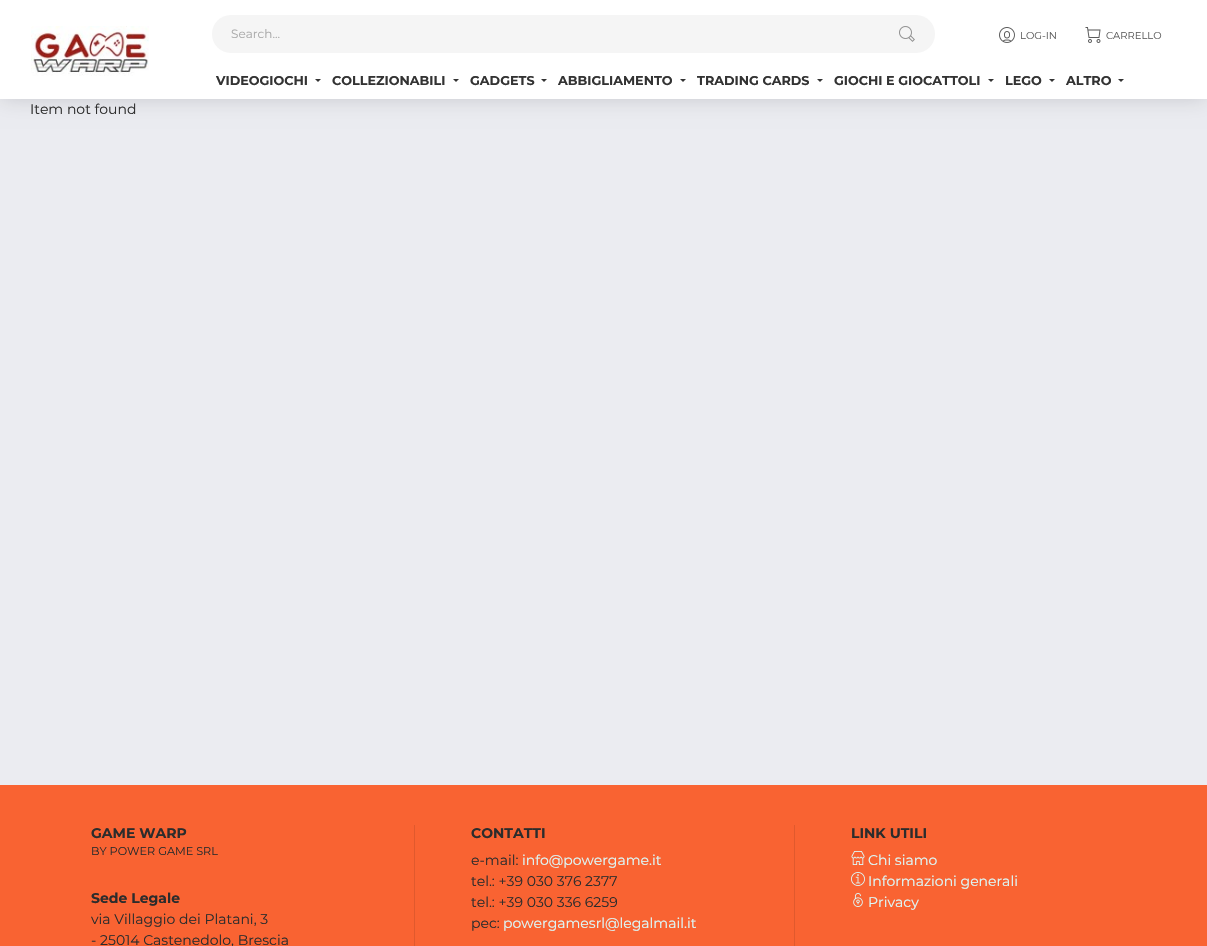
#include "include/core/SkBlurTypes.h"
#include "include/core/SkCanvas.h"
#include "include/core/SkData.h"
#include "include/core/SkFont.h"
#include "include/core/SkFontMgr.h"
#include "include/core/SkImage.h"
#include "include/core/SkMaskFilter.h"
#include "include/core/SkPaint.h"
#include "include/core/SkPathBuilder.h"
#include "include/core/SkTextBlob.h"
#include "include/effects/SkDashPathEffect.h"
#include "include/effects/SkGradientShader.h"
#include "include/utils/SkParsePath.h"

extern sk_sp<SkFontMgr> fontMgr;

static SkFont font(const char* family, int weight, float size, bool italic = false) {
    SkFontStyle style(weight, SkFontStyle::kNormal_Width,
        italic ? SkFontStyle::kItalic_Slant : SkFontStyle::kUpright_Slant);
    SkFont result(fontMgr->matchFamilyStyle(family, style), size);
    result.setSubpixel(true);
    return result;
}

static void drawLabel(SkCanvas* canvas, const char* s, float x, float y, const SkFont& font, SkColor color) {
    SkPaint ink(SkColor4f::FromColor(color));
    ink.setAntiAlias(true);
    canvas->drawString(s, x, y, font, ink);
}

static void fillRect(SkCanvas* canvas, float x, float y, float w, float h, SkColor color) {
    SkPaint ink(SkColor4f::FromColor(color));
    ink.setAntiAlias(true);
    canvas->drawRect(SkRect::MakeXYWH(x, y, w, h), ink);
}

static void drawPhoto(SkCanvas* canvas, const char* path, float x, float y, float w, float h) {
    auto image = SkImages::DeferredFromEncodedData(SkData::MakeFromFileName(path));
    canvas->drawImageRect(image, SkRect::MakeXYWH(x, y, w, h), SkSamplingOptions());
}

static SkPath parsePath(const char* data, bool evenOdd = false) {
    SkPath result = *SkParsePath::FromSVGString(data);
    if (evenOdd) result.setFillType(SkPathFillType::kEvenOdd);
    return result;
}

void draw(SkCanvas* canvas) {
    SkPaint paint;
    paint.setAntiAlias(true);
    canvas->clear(0xFFEBECF1);
    paint.setColor(0x26000000);
    paint.setMaskFilter(SkMaskFilter::MakeBlur(kNormal_SkBlurStyle, 10));
    canvas->drawRect(SkRect::MakeXYWH(0, 0, 1207, 99), paint);
    paint.setMaskFilter(nullptr);
    fillRect(canvas, 0, 0, 1207, 99, 0xFFFFFFFF);
    drawPhoto(canvas, "assets/img1.png", 31, 26, 118, 50);
    paint.setColor(0xFFF5F5F5);
    canvas->drawPath(parsePath("M231 15H899V53H231C220.5 53 212 44.5 212 34C212 23.5 220.5 15 231 15Z"), paint);
    SkFont font1 = font("Montserrat", 400, 12);
    drawLabel(canvas, "Search...", 231, 38, font1, 0xFFA9A9A9);
    canvas->drawPath(parsePath("M899 15H916C926.5 15 935 23.5 935 34C935 44.5 926.5 53 916 53H899Z"), paint);
    drawPhoto(canvas, "assets/img2.png", 899, 26, 16, 16);
    drawPhoto(canvas, "assets/img3.png", 999, 27, 16, 16);
    SkFont font2 = font("Montserrat", 400, 10);
    drawLabel(canvas, "LOG-IN", 1020, 39, font2, 0xFF5C5C5C);
    drawPhoto(canvas, "assets/img4.png", 1085, 27, 16, 16);
    drawLabel(canvas, "CARRELLO", 1106, 39, font2, 0xFF5C5C5C);
    SkFont font3 = font("Montserrat", 700, 12.75f);
    drawLabel(canvas, "VIDEOGIOCHI", 216, 85, font3, 0xFF333333);
    paint.setColor(0xFF333333);
    canvas->drawPath(parsePath("M315 79H321L318 82Z"), paint);
    drawLabel(canvas, "COLLEZIONABILI", 332, 85, font3, 0xFF333333);
    canvas->drawPath(parsePath("M453 79H459L456 82Z"), paint);
    drawLabel(canvas, "GADGETS", 470, 85, font3, 0xFF333333);
    canvas->drawPath(parsePath("M541 79H547L544 82Z"), paint);
    drawLabel(canvas, "ABBIGLIAMENTO", 558, 85, font3, 0xFF333333);
    canvas->drawPath(parsePath("M680 79H686L683 82Z"), paint);
    drawLabel(canvas, "TRADING CARDS", 697, 85, font3, 0xFF333333);
    canvas->drawPath(parsePath("M817 79H823L820 82Z"), paint);
    drawLabel(canvas, "GIOCHI E GIOCATTOLI", 834, 85, font3, 0xFF333333);
    canvas->drawPath(parsePath("M988 79H994L991 82Z"), paint);
    drawLabel(canvas, "LEGO", 1005, 85, font3, 0xFF333333);
    canvas->drawPath(parsePath("M1049 79H1055L1052 82Z"), paint);
    drawLabel(canvas, "ALTRO", 1066, 85, font3, 0xFF333333);
    canvas->drawPath(parsePath("M1118 79H1124L1121 82Z"), paint);
    SkFont font4 = font("Montserrat", 400, 14);
    drawLabel(canvas, "Item not found", 30, 114, font4, 0xFF2C2C2C);
    fillRect(canvas, 0, 785, 1207, 161, 0xFFF96332);
    SkFont font5 = font("Montserrat", 700, 14);
    drawLabel(canvas, "GAME WARP", 91, 838, font5, 0xFF2C2C2C);
    SkFont font6 = font("Montserrat", 400, 11.25f);
    drawLabel(canvas, "BY POWER GAME SRL", 91, 855, font6, 0xFF2C2C2C);
    drawLabel(canvas, "Sede Legale", 91, 903, font5, 0xFF2C2C2C);
    drawLabel(canvas, "via Villaggio dei Platani, 3", 91, 924, font4, 0xFF2C2C2C);
    drawLabel(canvas, "- 25014 Castenedolo, Brescia", 91, 945, font4, 0xFF2C2C2C);
    fillRect(canvas, 414, 825, 1, 121, 0xFFE0592D);
    drawLabel(canvas, "CONTATTI", 471, 838, font5, 0xFF2C2C2C);
    drawLabel(canvas, "e-mail:", 471, 865, font4, 0xFF2C2C2C);
    drawLabel(canvas, "info@powergame.it", 522, 865, font4, 0xFFDCFAFA);
    drawLabel(canvas, "tel.: +39 030 376 2377", 471, 886, font4, 0xFF2C2C2C);
    drawLabel(canvas, "tel.: +39 030 336 6259", 471, 907, font4, 0xFF2C2C2C);
    drawLabel(canvas, "pec:", 471, 928, font4, 0xFF2C2C2C);
    drawLabel(canvas, "powergamesrl@legalmail.it", 503, 928, font4, 0xFFDCFAFA);
    fillRect(canvas, 794, 825, 1, 121, 0xFFE0592D);
    drawLabel(canvas, "LINK UTILI", 851, 838, font5, 0xFF2C2C2C);
    drawPhoto(canvas, "assets/img5.png", 851, 851, 14, 14);
    drawLabel(canvas, "Chi siamo", 868, 865, font4, 0xFFDCFAFA);
    drawPhoto(canvas, "assets/img6.png", 851, 872, 14, 14);
    drawLabel(canvas, "Informazioni generali", 868, 886, font4, 0xFFDCFAFA);
    drawPhoto(canvas, "assets/img7.png", 853, 893, 10, 14);
    drawLabel(canvas, "Privacy", 868, 907, font4, 0xFFDCFAFA);
}
